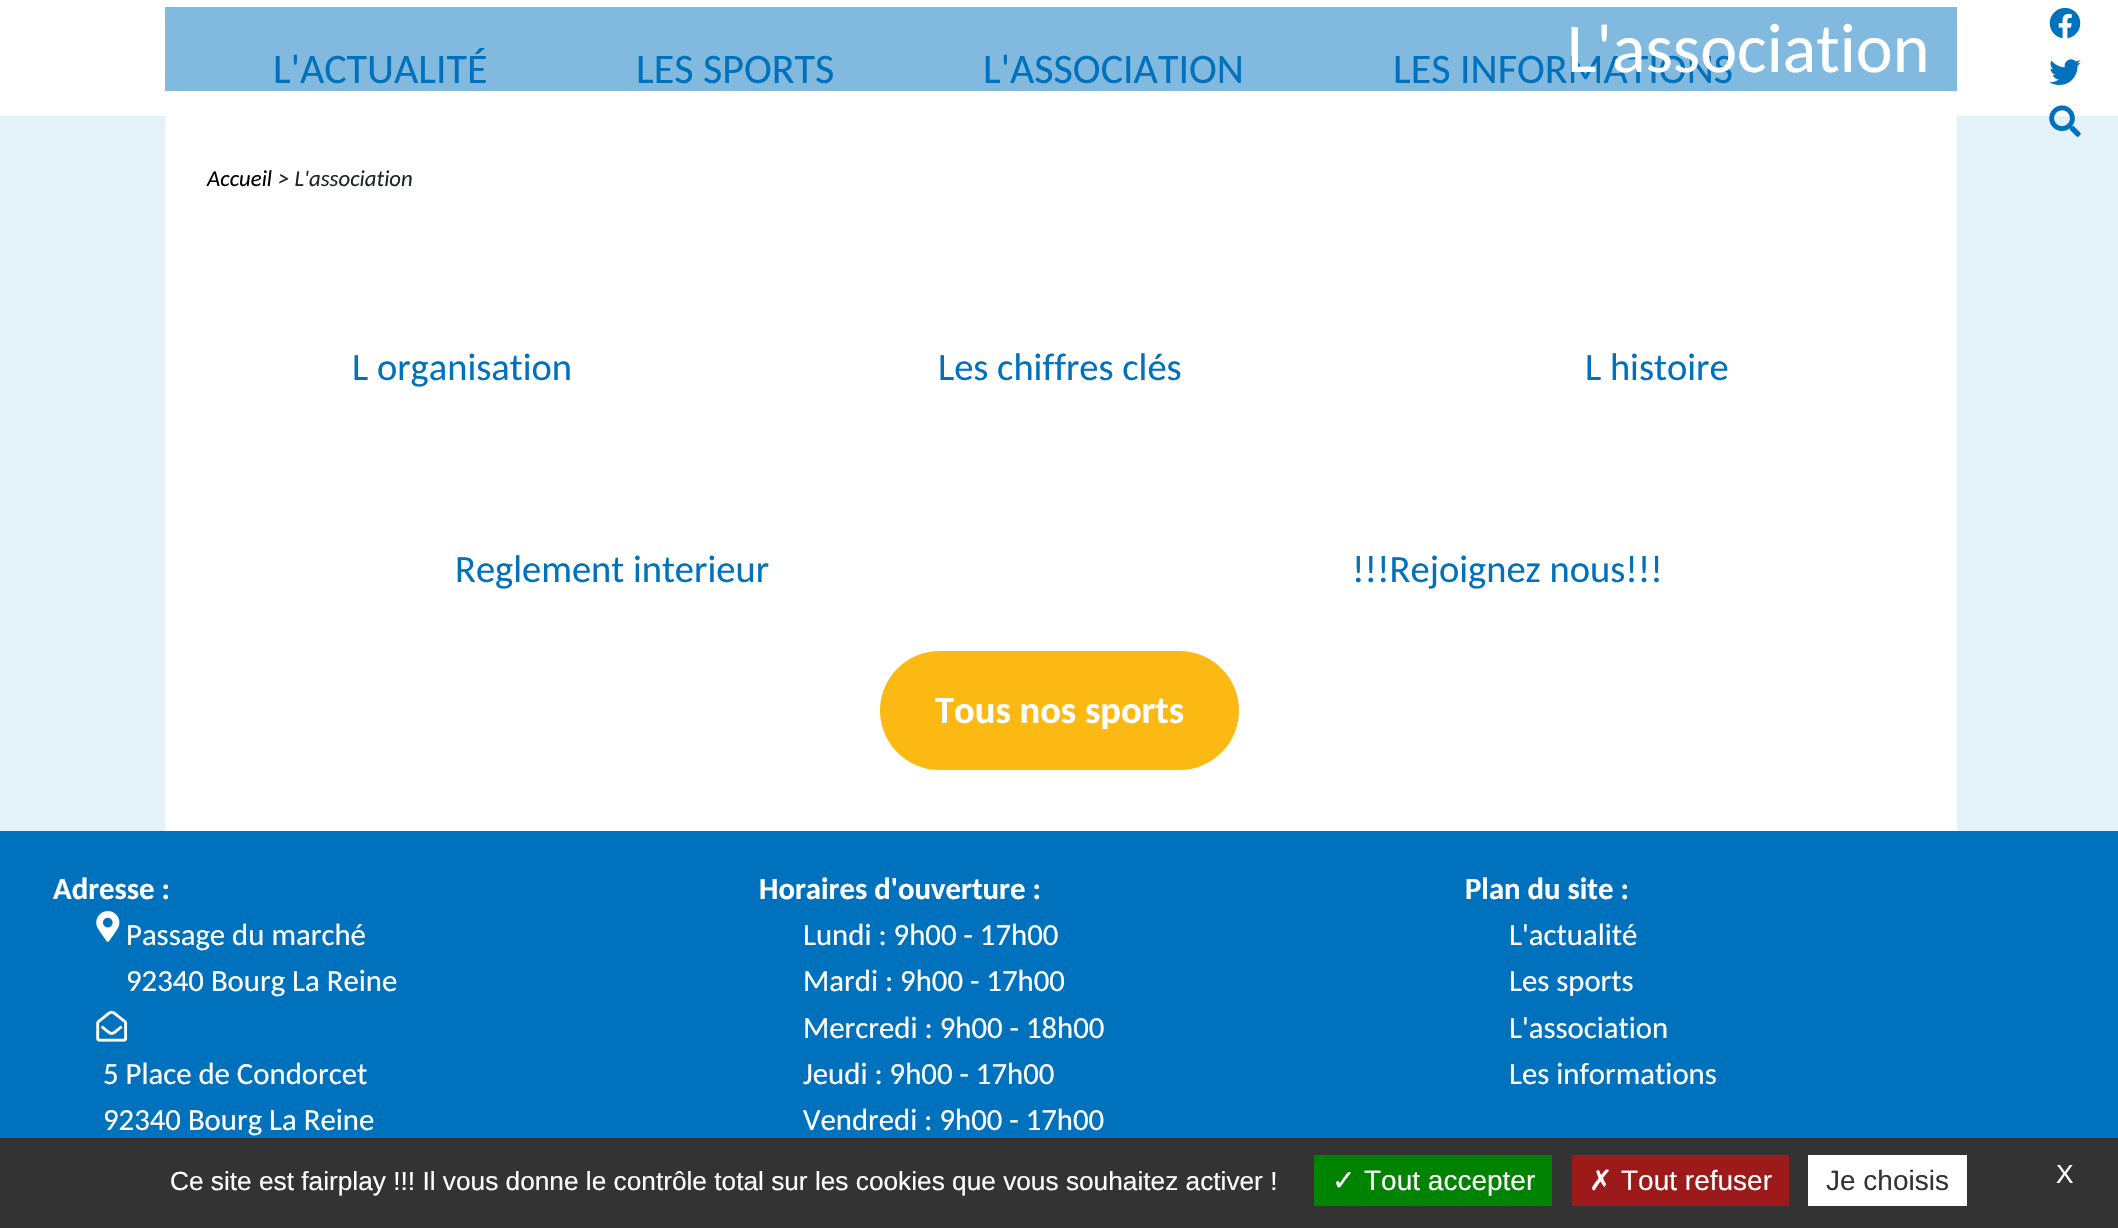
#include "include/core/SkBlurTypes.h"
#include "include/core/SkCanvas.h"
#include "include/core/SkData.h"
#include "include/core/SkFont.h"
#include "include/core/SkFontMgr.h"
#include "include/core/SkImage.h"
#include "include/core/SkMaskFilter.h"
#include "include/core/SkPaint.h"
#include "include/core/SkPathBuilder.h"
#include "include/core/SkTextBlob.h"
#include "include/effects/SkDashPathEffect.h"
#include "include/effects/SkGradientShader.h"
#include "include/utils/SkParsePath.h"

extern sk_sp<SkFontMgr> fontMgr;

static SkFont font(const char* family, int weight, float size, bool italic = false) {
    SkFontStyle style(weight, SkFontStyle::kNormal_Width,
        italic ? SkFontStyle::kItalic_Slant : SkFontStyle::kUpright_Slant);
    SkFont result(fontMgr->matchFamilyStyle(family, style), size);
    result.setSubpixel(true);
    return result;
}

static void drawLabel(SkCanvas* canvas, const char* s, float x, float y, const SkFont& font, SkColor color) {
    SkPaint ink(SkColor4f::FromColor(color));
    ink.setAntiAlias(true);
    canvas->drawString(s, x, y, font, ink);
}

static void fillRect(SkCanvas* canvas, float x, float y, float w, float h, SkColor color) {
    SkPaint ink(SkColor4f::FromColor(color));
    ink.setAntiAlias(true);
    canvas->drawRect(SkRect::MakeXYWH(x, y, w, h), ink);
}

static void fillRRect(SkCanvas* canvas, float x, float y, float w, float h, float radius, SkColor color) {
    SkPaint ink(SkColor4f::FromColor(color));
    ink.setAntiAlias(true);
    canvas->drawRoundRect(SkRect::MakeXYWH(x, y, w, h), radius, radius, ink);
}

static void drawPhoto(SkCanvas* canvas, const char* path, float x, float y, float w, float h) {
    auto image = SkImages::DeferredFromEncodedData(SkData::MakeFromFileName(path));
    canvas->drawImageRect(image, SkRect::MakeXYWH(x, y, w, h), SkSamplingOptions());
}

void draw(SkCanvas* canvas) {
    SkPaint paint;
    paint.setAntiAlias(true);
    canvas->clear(0xFFE3F1F9);
    fillRect(canvas, 165, 116, 1792, 715, 0xFFFFFFFF);
    fillRect(canvas, 0, 0, 2118, 116, 0xFFFFFFFF);
    fillRect(canvas, 165, 7, 1792, 84, 0xFF82B9DE);
    SkFont font1 = font("Carlito", 400, 42);
    drawLabel(canvas, "LES INFORMATIONS", 1393, 83, font1, 0xFF0071BC);
    SkFont font2 = font("Carlito", 400, 70);
    drawLabel(canvas, "L'association", 1567, 72, font2, 0xFFFFFFFF);
    SkFont font3 = font("Carlito", 400, 22.75f, true);
    drawLabel(canvas, "Accueil", 207, 186, font3, 0xFF000000);
    drawLabel(canvas, "> L'association", 278, 186, font3, 0xFF212529);
    SkFont font4 = font("Carlito", 400, 38.5f);
    drawLabel(canvas, "L organisation", 352, 380, font4, 0xFF0071BC);
    drawLabel(canvas, "Les chiffres clés", 938, 380, font4, 0xFF0071BC);
    drawLabel(canvas, "L histoire", 1585, 380, font4, 0xFF0071BC);
    drawLabel(canvas, "Reglement interieur", 455, 582, font4, 0xFF0071BC);
    drawLabel(canvas, "!!!Rejoignez nous!!!", 1352, 582, font4, 0xFF0071BC);
    fillRRect(canvas, 880, 651, 359, 119, 59.5f, 0xFFFCB913);
    SkFont font5 = font("Carlito", 700, 38.5f);
    drawLabel(canvas, "Tous nos sports", 935, 723, font5, 0xFFFFFFFF);
    drawLabel(canvas, "L'ACTUALITÉ", 273, 83, font1, 0xFF0071BC);
    drawLabel(canvas, "LES SPORTS", 636, 83, font1, 0xFF0071BC);
    drawLabel(canvas, "L'ASSOCIATION", 983, 83, font1, 0xFF0071BC);
    drawPhoto(canvas, "assets/img1.png", 2049, 7, 32, 32);
    drawPhoto(canvas, "assets/img2.png", 2049, 59, 32, 26);
    drawPhoto(canvas, "assets/img3.png", 2049, 105, 32, 32);
    fillRect(canvas, 0, 831, 2118, 307, 0xFF0071BC);
    SkFont font6 = font("Carlito", 700, 30.75f);
    drawLabel(canvas, "Adresse :", 53, 899, font6, 0xFFFFFFFF);
    drawPhoto(canvas, "assets/img4.png", 96, 911, 24, 31);
    SkFont font7 = font("Carlito", 400, 30.75f);
    drawLabel(canvas, "Passage du marché", 126, 945, font7, 0xFFFFFFFF);
    drawLabel(canvas, "92340 Bourg La Reine", 126, 991, font7, 0xFFFFFFFF);
    drawPhoto(canvas, "assets/img5.png", 96, 1010, 32, 32);
    drawLabel(canvas, "5 Place de Condorcet", 103, 1084, font7, 0xFFFFFFFF);
    drawLabel(canvas, "92340 Bourg La Reine", 103, 1130, font7, 0xFFFFFFFF);
    drawLabel(canvas, "Horaires d'ouverture :", 759, 899, font6, 0xFFFFFFFF);
    drawLabel(canvas, "Lundi : 9h00 - 17h00", 803, 945, font7, 0xFFFFFFFF);
    drawLabel(canvas, "Mardi : 9h00 - 17h00", 803, 991, font7, 0xFFFFFFFF);
    drawLabel(canvas, "Mercredi : 9h00 - 18h00", 803, 1038, font7, 0xFFFFFFFF);
    drawLabel(canvas, "Jeudi : 9h00 - 17h00", 803, 1084, font7, 0xFFFFFFFF);
    drawLabel(canvas, "Vendredi : 9h00 - 17h00", 803, 1130, font7, 0xFFFFFFFF);
    drawLabel(canvas, "Plan du site :", 1465, 899, font6, 0xFFFFFFFF);
    drawLabel(canvas, "L'actualité", 1509, 945, font7, 0xFFFFFFFF);
    drawLabel(canvas, "Les sports", 1509, 991, font7, 0xFFFFFFFF);
    drawLabel(canvas, "L'association", 1509, 1038, font7, 0xFFFFFFFF);
    drawLabel(canvas, "Les informations", 1509, 1084, font7, 0xFFFFFFFF);
    fillRect(canvas, 0, 1138, 2118, 90, 0xFF333333);
    SkFont font8 = font("Liberation Sans", 400, 26.25f);
    drawLabel(canvas, "Ce site est fairplay !!! Il vous donne le contrôle total sur les cookies que vous souhaitez activer !", 170, 1190, font8, 0xFFFFFFFF);
    fillRect(canvas, 1314, 1155, 238, 51, 0xFF008300);
    SkFont font9 = font("DejaVu Sans", 400, 28);
    drawLabel(canvas, "✓", 1332, 1190, font9, 0xFFFFFFFF);
    SkFont font10 = font("Liberation Sans", 400, 28);
    drawLabel(canvas, "Tout accepter", 1364, 1190, font10, 0xFFFFFFFF);
    fillRect(canvas, 1572, 1155, 217, 51, 0xFF9C1A1A);
    drawLabel(canvas, "✗", 1589, 1190, font9, 0xFFFFFFFF);
    drawLabel(canvas, "Tout refuser", 1621, 1190, font10, 0xFFFFFFFF);
    fillRect(canvas, 1808, 1155, 159, 51, 0xFFFFFFFF);
    drawLabel(canvas, "Je choisis", 1826, 1190, font10, 0xFF333333);
    drawLabel(canvas, "X", 2056, 1183, font8, 0xFFFFFFFF);
}
